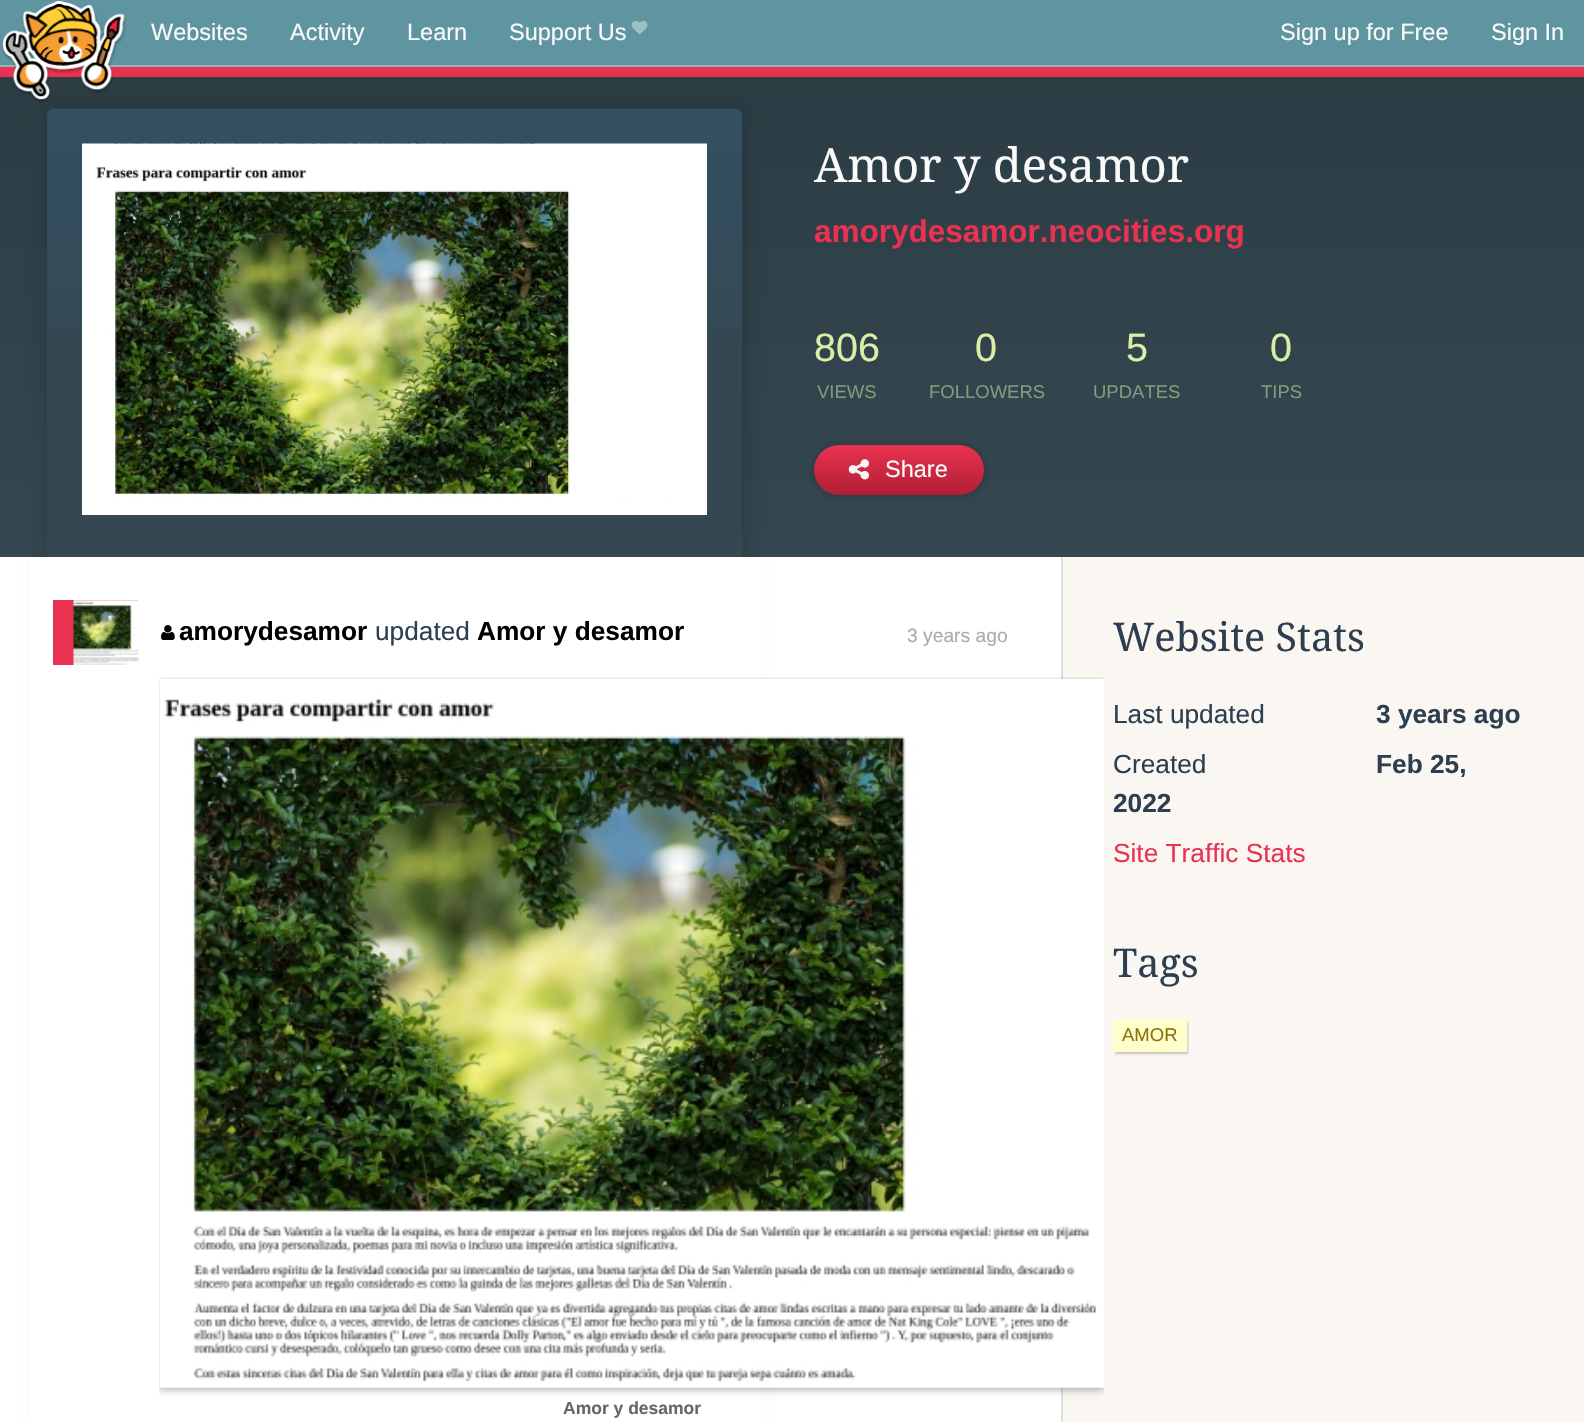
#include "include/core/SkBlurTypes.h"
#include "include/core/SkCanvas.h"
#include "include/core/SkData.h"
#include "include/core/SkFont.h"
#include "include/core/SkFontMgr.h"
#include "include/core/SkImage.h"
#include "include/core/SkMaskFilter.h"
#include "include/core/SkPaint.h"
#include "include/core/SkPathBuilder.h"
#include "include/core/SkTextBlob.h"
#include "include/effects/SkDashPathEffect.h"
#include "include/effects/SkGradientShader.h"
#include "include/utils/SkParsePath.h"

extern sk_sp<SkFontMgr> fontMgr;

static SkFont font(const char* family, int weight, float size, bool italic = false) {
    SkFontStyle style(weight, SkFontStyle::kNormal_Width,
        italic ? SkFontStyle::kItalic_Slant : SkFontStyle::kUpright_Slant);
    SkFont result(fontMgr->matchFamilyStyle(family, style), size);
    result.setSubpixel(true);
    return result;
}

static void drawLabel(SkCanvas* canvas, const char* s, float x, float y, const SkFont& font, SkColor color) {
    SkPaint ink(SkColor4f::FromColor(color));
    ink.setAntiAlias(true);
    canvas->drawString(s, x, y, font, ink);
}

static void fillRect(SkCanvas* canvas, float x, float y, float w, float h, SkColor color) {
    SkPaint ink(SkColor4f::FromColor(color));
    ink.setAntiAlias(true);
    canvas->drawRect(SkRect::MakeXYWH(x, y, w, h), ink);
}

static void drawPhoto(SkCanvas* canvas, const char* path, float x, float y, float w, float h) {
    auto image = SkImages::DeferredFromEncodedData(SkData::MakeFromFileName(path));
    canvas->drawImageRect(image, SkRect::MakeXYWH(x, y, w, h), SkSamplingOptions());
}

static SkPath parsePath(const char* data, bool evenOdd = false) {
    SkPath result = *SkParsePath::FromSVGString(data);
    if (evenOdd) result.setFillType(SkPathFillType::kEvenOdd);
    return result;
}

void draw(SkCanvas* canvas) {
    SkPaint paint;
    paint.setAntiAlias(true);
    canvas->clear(0xFFFFFFFF);
    {
        const SkColor colors[] = {0xFF2B3C43, 0xFF354751};
        const float stops[] = {0, 1};
        const SkPoint ends[] = {{793, 38}, {793, 557}};
        paint.setShader(SkGradientShader::MakeLinear(ends, colors, stops, 2, SkTileMode::kClamp));
        paint.setAlpha(255);
    }
    canvas->drawRect(SkRect::MakeXYWH(0, 77, 1584, 480), paint);
    paint.setShader(nullptr);
    paint.setColor(0x26000000);
    paint.setMaskFilter(SkMaskFilter::MakeBlur(kNormal_SkBlurStyle, 10.5f));
    canvas->drawRoundRect(SkRect::MakeXYWH(46, 109, 701, 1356), 11, 11, paint);
    paint.setMaskFilter(nullptr);
    fillRect(canvas, 0, 67, 1584, 10, 0xFFE93250);
    fillRect(canvas, 0, 0, 1584, 65, 0xFF5E95A1);
    fillRect(canvas, 0, 65, 1584, 2, 0xFF92B4BD);
    drawPhoto(canvas, "assets/img1.png", 1, 1, 126, 102);
    SkFont font1 = font("Liberation Sans", 400, 23.5f);
    drawLabel(canvas, "Websites", 151, 40, font1, 0xFFFAFAFA);
    drawLabel(canvas, "Activity", 290, 40, font1, 0xFFFAFAFA);
    drawLabel(canvas, "Learn", 407, 40, font1, 0xFFFAFAFA);
    drawLabel(canvas, "Support Us", 509, 40, font1, 0xFFFAFAFA);
    drawPhoto(canvas, "assets/img2.png", 631, 20, 17, 15);
    drawLabel(canvas, "Sign up for Free", 1280, 40, font1, 0xFFFAFAFA);
    drawLabel(canvas, "Sign In", 1491, 40, font1, 0xFFFAFAFA);
    paint.setColor(0xFF354751);
    canvas->drawPath(parsePath("M54 109H735C739 109 742 112 742 116V557H47V116C47 112 50 109 54 109Z"), paint);
    drawPhoto(canvas, "assets/img3.png", 47, 108, 695, 221);
    drawPhoto(canvas, "assets/img4.png", 82, 143, 625, 361);
    paint.setStroke(true);
    paint.setStrokeWidth(11);
    paint.setColor(0xFFFFFFFF);
    canvas->drawRect(SkRect::MakeXYWH(87.5f, 149.5f, 614, 360), paint);
    SkFont font2 = font("Droid Serif", 400, 47.25f);
    drawLabel(canvas, "Amor y desamor", 814, 182, font2, 0xFFFAFAFA);
    SkFont font3 = font("Liberation Sans", 700, 31.5f);
    drawLabel(canvas, "amorydesamor.neocities.org", 814, 242, font3, 0xFFE93250);
    SkFont font4 = font("Liberation Sans", 400, 39.5f);
    drawLabel(canvas, "806", 814, 361, font4, 0xFFDAEEA5);
    SkFont font5 = font("Liberation Sans", 400, 18.5f);
    drawLabel(canvas, "VIEWS", 817, 398, font5, 0xFF84997E);
    drawLabel(canvas, "0", 975, 361, font4, 0xFFDAEEA5);
    drawLabel(canvas, "FOLLOWERS", 929, 398, font5, 0xFF84997E);
    drawLabel(canvas, "5", 1126, 361, font4, 0xFFDAEEA5);
    drawLabel(canvas, "UPDATES", 1093, 398, font5, 0xFF84997E);
    drawLabel(canvas, "0", 1270, 361, font4, 0xFFDAEEA5);
    drawLabel(canvas, "TIPS", 1261, 398, font5, 0xFF84997E);
    paint.setStroke(false);
    paint.setColor(0x40000000);
    paint.setMaskFilter(SkMaskFilter::MakeBlur(kNormal_SkBlurStyle, 5));
    canvas->drawRoundRect(SkRect::MakeXYWH(814, 445, 170, 50), 25, 25, paint);
    paint.setMaskFilter(nullptr);
    {
        const SkColor colors[] = {0xFFE93250, 0xFFB11F36};
        const float stops[] = {0, 1};
        const SkPoint ends[] = {{899, 445}, {899, 495}};
        paint.setShader(SkGradientShader::MakeLinear(ends, colors, stops, 2, SkTileMode::kClamp));
        paint.setAlpha(255);
    }
    canvas->drawRoundRect(SkRect::MakeXYWH(814, 445, 170, 50), 25, 25, paint);
    drawPhoto(canvas, "assets/img5.png", 848, 459, 21, 21);
    drawLabel(canvas, "Share", 885, 477, font1, 0xFFFAFAFA);
    fillRect(canvas, 1063, 557, 521, 865, 0xFFFAF6F1);
    fillRect(canvas, 1061, 557, 2, 865, 0xFFDDDDDD);
    fillRect(canvas, 30, 557, 733, 865, 0xFFFFFFFF);
    fillRect(canvas, 53, 600, 85, 65, 0xFFE93250);
    drawPhoto(canvas, "assets/img6.png", 73, 600, 66, 65);
    drawPhoto(canvas, "assets/img7.png", 161, 625, 14, 15);
    SkFont font6 = font("Liberation Sans", 700, 26.25f);
    drawLabel(canvas, "amorydesamor", 179, 640, font6, 0xFF000000);
    SkFont font7 = font("Liberation Sans", 400, 26.25f);
    drawLabel(canvas, "updated", 375, 640, font7, 0xFF2C3E50);
    drawLabel(canvas, "Amor y desamor", 477, 640, font6, 0xFF000000);
    SkFont font8 = font("Liberation Sans", 400, 19.25f);
    drawLabel(canvas, "3 years ago", 907, 642, font8, 0xFFAAAAAA);
    canvas->save();
    canvas->clipRect(SkRect::MakeXYWH(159, 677, 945, 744));
    paint.setShader(nullptr);
    paint.setColor(0x4D000000);
    paint.setMaskFilter(SkMaskFilter::MakeBlur(kNormal_SkBlurStyle, 3.5f));
    canvas->drawRect(SkRect::MakeXYWH(159, 681, 945, 709), paint);
    paint.setMaskFilter(nullptr);
    canvas->restore();
    drawPhoto(canvas, "assets/img8.png", 159, 679, 945, 709);
    SkFont font9 = font("Liberation Sans", 700, 17.5f);
    drawLabel(canvas, "Amor y desamor", 563, 1414, font9, 0xFF666666);
    SkFont font10 = font("Droid Serif", 400, 39.5f);
    drawLabel(canvas, "Website Stats", 1113, 651, font10, 0xFF2C3E50);
    drawLabel(canvas, "Last updated", 1113, 723, font7, 0xFF2C3E50);
    drawLabel(canvas, "3 years ago", 1376, 723, font6, 0xFF2C3E50);
    drawLabel(canvas, "Created", 1113, 773, font7, 0xFF2C3E50);
    drawLabel(canvas, "Feb 25,", 1376, 773, font6, 0xFF2C3E50);
    drawLabel(canvas, "2022", 1113, 812, font6, 0xFF2C3E50);
    drawLabel(canvas, "Site Traffic Stats", 1113, 862, font7, 0xFFE93250);
    drawLabel(canvas, "Tags", 1113, 977, font10, 0xFF2C3E50);
    paint.setColor(0x33000000);
    paint.setMaskFilter(SkMaskFilter::MakeBlur(kNormal_SkBlurStyle, 1));
    canvas->drawRect(SkRect::MakeXYWH(1115, 1022, 73, 32), paint);
    paint.setMaskFilter(nullptr);
    fillRect(canvas, 1113, 1020, 74, 32, 0xFFFFFFCC);
    drawLabel(canvas, "AMOR", 1122, 1041, font5, 0xFF897106);
}
